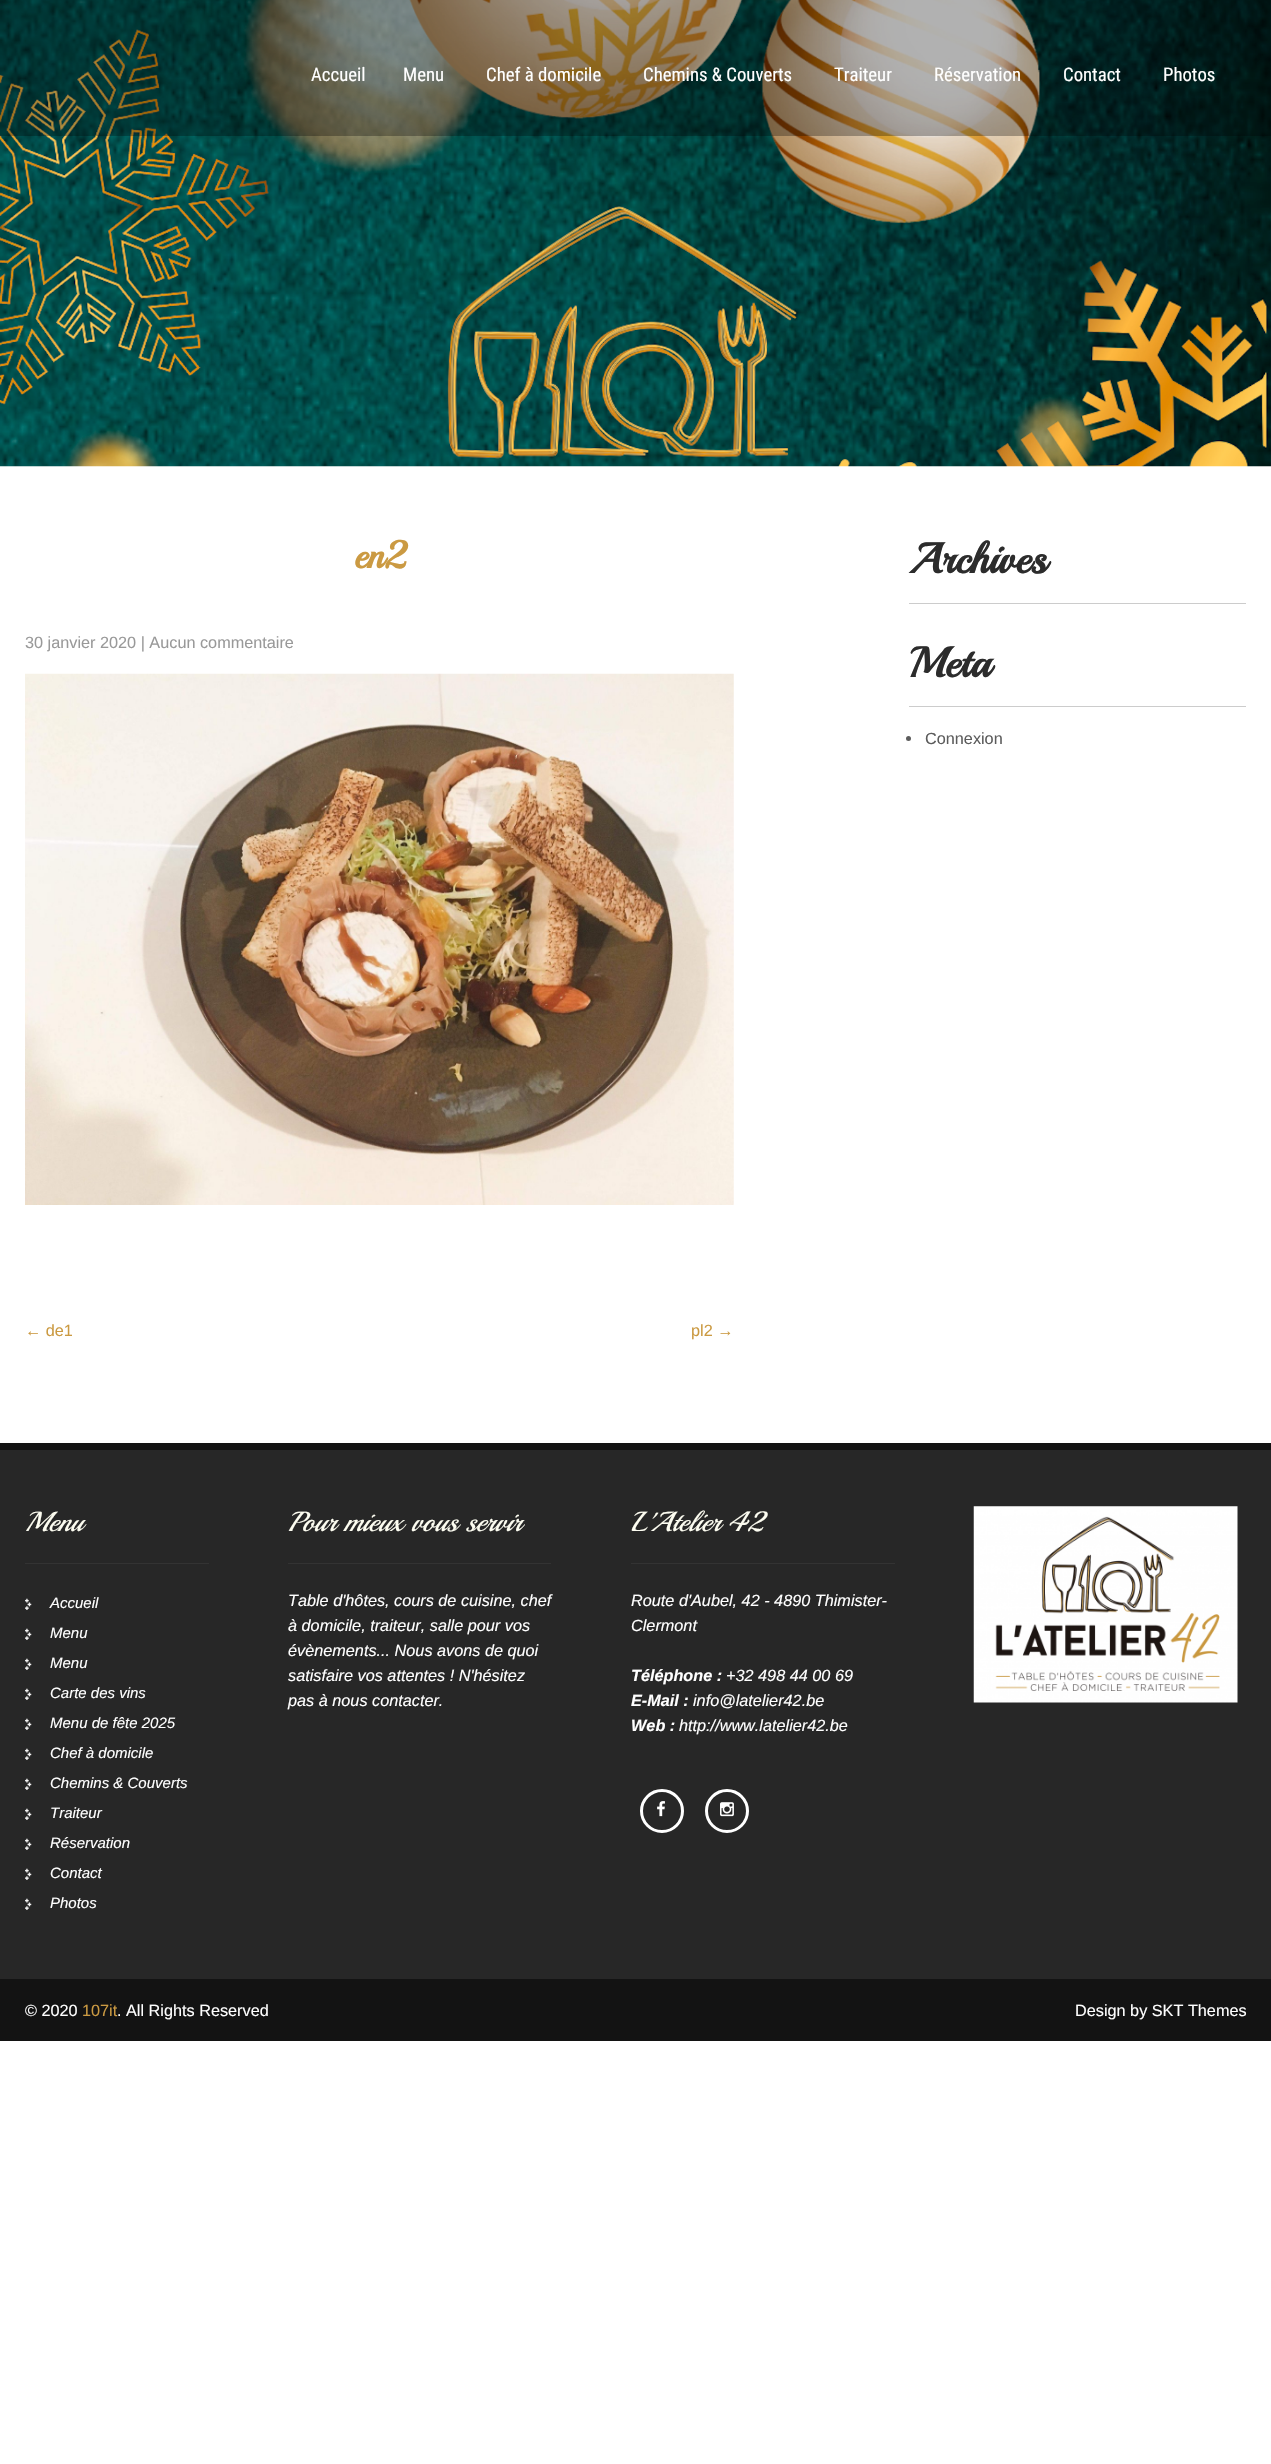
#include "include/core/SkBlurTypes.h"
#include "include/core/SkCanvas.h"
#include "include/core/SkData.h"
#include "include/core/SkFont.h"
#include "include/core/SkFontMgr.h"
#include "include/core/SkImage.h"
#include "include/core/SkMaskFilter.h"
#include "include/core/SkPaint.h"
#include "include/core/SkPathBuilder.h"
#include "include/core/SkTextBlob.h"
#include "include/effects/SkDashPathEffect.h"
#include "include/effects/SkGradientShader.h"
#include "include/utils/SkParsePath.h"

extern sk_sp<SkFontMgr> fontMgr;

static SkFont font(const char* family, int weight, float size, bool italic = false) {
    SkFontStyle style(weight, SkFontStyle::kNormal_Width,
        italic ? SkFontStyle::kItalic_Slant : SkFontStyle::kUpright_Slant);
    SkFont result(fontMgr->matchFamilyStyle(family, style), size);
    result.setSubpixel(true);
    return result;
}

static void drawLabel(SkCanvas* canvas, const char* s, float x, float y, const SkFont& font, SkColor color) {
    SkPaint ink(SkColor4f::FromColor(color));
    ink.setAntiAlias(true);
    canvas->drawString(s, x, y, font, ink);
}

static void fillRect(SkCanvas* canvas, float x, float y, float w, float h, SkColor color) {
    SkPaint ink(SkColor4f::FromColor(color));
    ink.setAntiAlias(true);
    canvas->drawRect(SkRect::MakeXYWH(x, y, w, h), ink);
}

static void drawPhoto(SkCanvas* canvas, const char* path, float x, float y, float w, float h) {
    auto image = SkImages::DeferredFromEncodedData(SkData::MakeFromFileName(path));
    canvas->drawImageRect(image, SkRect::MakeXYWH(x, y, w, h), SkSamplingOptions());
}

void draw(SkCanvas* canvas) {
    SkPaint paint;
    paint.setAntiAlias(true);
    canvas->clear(0xFFFFFFFF);
    drawPhoto(canvas, "assets/img1.png", 0, 0, 1271, 467);
    fillRect(canvas, 0, 0, 1271, 136, 0x4D000000);
    SkFont font1 = font("Roboto Condensed", 400, 18.75f);
    drawLabel(canvas, "Accueil", 311, 81, font1, 0xFFFFFFFF);
    drawLabel(canvas, "Menu", 403, 81, font1, 0xFFFFFFFF);
    drawLabel(canvas, "Chef à domicile", 486, 81, font1, 0xFFFFFFFF);
    drawLabel(canvas, "Chemins & Couverts", 643, 81, font1, 0xFFFFFFFF);
    drawLabel(canvas, "Traiteur", 834, 81, font1, 0xFFFFFFFF);
    drawLabel(canvas, "Réservation", 934, 81, font1, 0xFFFFFFFF);
    drawLabel(canvas, "Contact", 1063, 81, font1, 0xFFFFFFFF);
    drawLabel(canvas, "Photos", 1163, 81, font1, 0xFFFFFFFF);
    SkFont font2 = font("Playball", 700, 38);
    drawLabel(canvas, "en2", 354, 568, font2, 0xFFCB9A42);
    SkFont font3 = font("Liberation Sans", 400, 16.25f);
    drawLabel(canvas, "30 janvier 2020 | Aucun commentaire", 25, 648, font3, 0xFF999999);
    drawPhoto(canvas, "assets/img2.png", 25, 673, 709, 532);
    drawLabel(canvas, "← de1", 25, 1336, font3, 0xFFCB9A42);
    drawLabel(canvas, "pl2 →", 691, 1336, font3, 0xFFCB9A42);
    fillRect(canvas, 909, 603, 337, 1, 0xFFCCCCCC);
    SkFont font4 = font("Playball", 700, 42.5f);
    drawLabel(canvas, "Archives", 909, 573, font4, 0xFF2C2C2C);
    fillRect(canvas, 909, 706, 337, 1, 0xFFCCCCCC);
    drawLabel(canvas, "Meta", 909, 677, font4, 0xFF2C2C2C);
    paint.setColor(0xFF5C5C5C);
    canvas->drawCircle(908.5f, 738.5f, 2.5f, paint);
    drawLabel(canvas, "Connexion", 925, 744, font3, 0xFF5C5C5C);
    fillRect(canvas, 0, 1450, 1271, 529, 0xFF272727);
    fillRect(canvas, 0, 1443, 1271, 7, 0xFF131313);
    fillRect(canvas, 25, 1563, 184, 1, 0xFF333333);
    SkFont font5 = font("Playball", 400, 27.5f, true);
    drawLabel(canvas, "Menu", 25, 1531, font5, 0xFFFDFDF1);
    drawPhoto(canvas, "assets/img3.png", 25, 1598, 7, 12);
    SkFont font6 = font("Liberation Sans", 400, 15, true);
    drawLabel(canvas, "Accueil", 50, 1608, font6, 0xFFFFFFFF);
    drawPhoto(canvas, "assets/img3.png", 25, 1628, 7, 12);
    drawLabel(canvas, "Menu", 50, 1638, font6, 0xFFFFFFFF);
    drawPhoto(canvas, "assets/img3.png", 25, 1658, 7, 12);
    drawLabel(canvas, "Menu", 50, 1668, font6, 0xFFFFFFFF);
    drawPhoto(canvas, "assets/img3.png", 25, 1688, 7, 12);
    drawLabel(canvas, "Carte des vins", 50, 1698, font6, 0xFFFFFFFF);
    drawPhoto(canvas, "assets/img3.png", 25, 1718, 7, 12);
    drawLabel(canvas, "Menu de fête 2025", 50, 1728, font6, 0xFFFFFFFF);
    drawPhoto(canvas, "assets/img3.png", 25, 1748, 7, 12);
    drawLabel(canvas, "Chef à domicile", 50, 1758, font6, 0xFFFFFFFF);
    drawPhoto(canvas, "assets/img3.png", 25, 1778, 7, 12);
    drawLabel(canvas, "Chemins & Couverts", 50, 1788, font6, 0xFFFFFFFF);
    drawPhoto(canvas, "assets/img3.png", 25, 1808, 7, 12);
    drawLabel(canvas, "Traiteur", 50, 1818, font6, 0xFFFFFFFF);
    drawPhoto(canvas, "assets/img3.png", 25, 1838, 7, 12);
    drawLabel(canvas, "Réservation", 50, 1848, font6, 0xFFFFFFFF);
    drawPhoto(canvas, "assets/img3.png", 25, 1868, 7, 12);
    drawLabel(canvas, "Contact", 50, 1878, font6, 0xFFFFFFFF);
    drawPhoto(canvas, "assets/img3.png", 25, 1898, 7, 12);
    drawLabel(canvas, "Photos", 50, 1908, font6, 0xFFFFFFFF);
    fillRect(canvas, 288, 1563, 263, 1, 0xFF333333);
    drawLabel(canvas, "Pour mieux vous servir", 288, 1531, font5, 0xFFFDFDF1);
    SkFont font7 = font("Liberation Sans", 400, 16.25f, true);
    drawLabel(canvas, "Table d'hôtes, cours de cuisine, chef", 288, 1606, font7, 0xFFFFFFFF);
    drawLabel(canvas, "à domicile, traiteur, salle pour vos", 288, 1631, font7, 0xFFFFFFFF);
    drawLabel(canvas, "évènements... Nous avons de quoi", 288, 1656, font7, 0xFFFFFFFF);
    drawLabel(canvas, "satisfaire vos attentes ! N'hésitez", 288, 1681, font7, 0xFFFFFFFF);
    drawLabel(canvas, "pas à nous contacter.", 288, 1706, font7, 0xFFFFFFFF);
    fillRect(canvas, 631, 1563, 264, 1, 0xFF333333);
    drawLabel(canvas, "L'Atelier 42", 631, 1531, font5, 0xFFFDFDF1);
    drawLabel(canvas, "Route d'Aubel, 42 - 4890 Thimister-", 631, 1606, font7, 0xFFFFFFFF);
    drawLabel(canvas, "Clermont", 631, 1631, font7, 0xFFFFFFFF);
    SkFont font8 = font("Liberation Sans", 700, 16.25f, true);
    drawLabel(canvas, "Téléphone :", 631, 1681, font8, 0xFFFFFFFF);
    drawLabel(canvas, "+32 498 44 00 69", 726, 1681, font7, 0xFFFFFFFF);
    drawLabel(canvas, "E-Mail :", 631, 1706, font8, 0xFFFFFFFF);
    drawLabel(canvas, "info@latelier42.be", 693, 1706, font7, 0xFFFFFFFF);
    drawLabel(canvas, "Web :", 631, 1731, font8, 0xFFFFFFFF);
    drawLabel(canvas, "http://www.latelier42.be", 679, 1731, font7, 0xFFFFFFFF);
    paint.setStroke(true);
    paint.setStrokeWidth(3);
    paint.setColor(0xFFFFFFFF);
    canvas->drawCircle(662, 1811, 20.5f, paint);
    drawPhoto(canvas, "assets/img4.png", 657, 1801, 8, 16);
    canvas->drawCircle(727, 1811, 20.5f, paint);
    drawPhoto(canvas, "assets/img5.png", 720, 1802, 14, 15);
    drawPhoto(canvas, "assets/img6.png", 973, 1506, 265, 197);
    fillRect(canvas, 0, 1979, 1271, 62, 0xFF131313);
    drawLabel(canvas, "© 2020", 25, 2016, font3, 0xFFFFFFFF);
    drawLabel(canvas, "107it", 82, 2016, font3, 0xFFCB9A42);
    drawLabel(canvas, ". All Rights Reserved", 117, 2016, font3, 0xFFFFFFFF);
    drawLabel(canvas, "Design by SKT Themes", 1075, 2016, font3, 0xFFFFFFFF);
}
